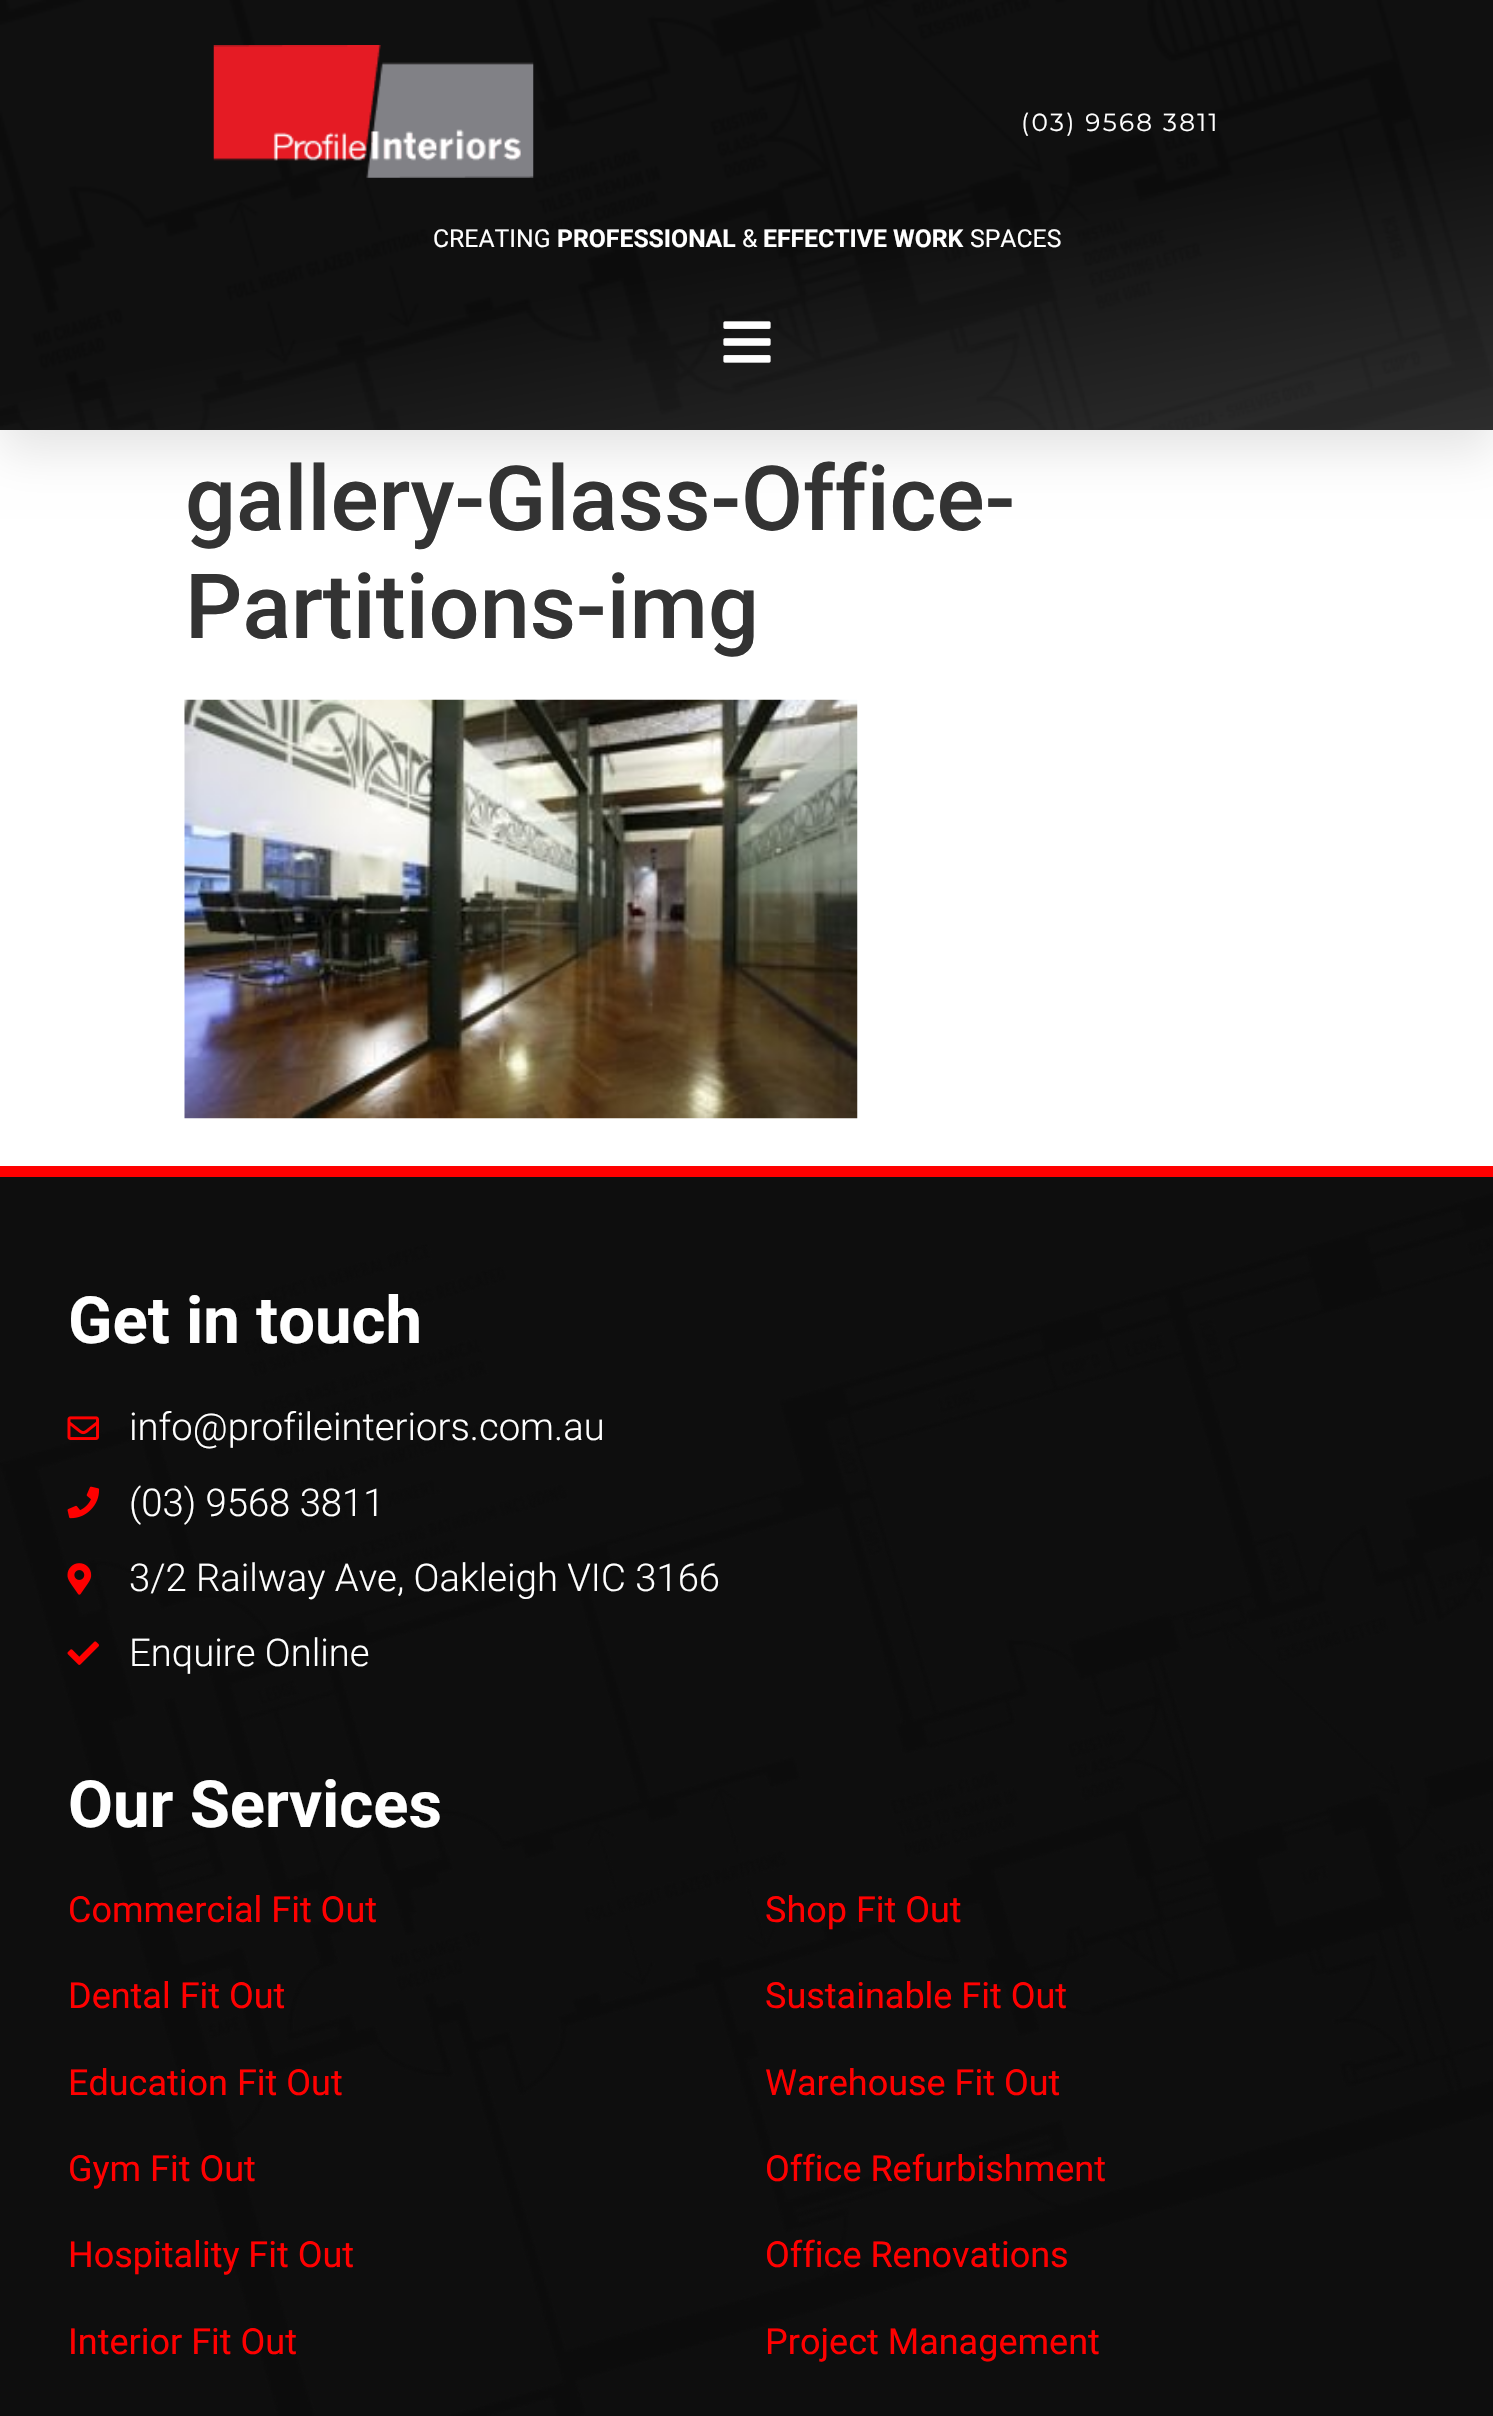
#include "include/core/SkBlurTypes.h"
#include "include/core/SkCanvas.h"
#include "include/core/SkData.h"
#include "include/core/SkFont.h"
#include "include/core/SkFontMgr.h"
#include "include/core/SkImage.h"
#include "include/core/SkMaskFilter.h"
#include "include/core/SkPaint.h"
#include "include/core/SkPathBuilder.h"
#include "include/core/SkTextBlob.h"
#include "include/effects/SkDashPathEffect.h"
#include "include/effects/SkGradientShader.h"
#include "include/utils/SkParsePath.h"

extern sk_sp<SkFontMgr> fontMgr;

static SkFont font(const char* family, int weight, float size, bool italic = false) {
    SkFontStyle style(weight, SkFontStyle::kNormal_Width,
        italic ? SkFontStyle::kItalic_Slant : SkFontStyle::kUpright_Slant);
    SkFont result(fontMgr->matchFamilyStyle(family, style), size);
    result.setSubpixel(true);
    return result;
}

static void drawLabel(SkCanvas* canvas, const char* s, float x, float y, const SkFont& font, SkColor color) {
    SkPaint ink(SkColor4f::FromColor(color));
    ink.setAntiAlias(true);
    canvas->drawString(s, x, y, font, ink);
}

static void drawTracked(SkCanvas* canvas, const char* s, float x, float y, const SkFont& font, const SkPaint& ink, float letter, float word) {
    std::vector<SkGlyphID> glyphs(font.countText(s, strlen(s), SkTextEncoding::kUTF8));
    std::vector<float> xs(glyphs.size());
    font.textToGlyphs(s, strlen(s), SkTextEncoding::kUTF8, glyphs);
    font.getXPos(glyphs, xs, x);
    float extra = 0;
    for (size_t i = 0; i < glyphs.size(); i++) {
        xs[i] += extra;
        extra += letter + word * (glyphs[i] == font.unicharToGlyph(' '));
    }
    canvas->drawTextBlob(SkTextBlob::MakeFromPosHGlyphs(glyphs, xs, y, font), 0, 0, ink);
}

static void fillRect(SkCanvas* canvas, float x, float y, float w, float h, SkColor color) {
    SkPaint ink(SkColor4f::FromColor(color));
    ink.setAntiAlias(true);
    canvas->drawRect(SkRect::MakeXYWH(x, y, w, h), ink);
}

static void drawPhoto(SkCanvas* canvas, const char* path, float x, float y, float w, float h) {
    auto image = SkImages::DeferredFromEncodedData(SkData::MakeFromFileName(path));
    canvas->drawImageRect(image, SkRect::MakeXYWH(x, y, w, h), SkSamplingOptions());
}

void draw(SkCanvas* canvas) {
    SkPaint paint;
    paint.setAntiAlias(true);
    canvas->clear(0xFFFFFFFF);
    paint.setColor(0x1A000000);
    paint.setMaskFilter(SkMaskFilter::MakeBlur(kNormal_SkBlurStyle, 22.5f));
    canvas->drawRect(SkRect::MakeXYWH(0, 23, 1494, 429), paint);
    paint.setMaskFilter(nullptr);
    fillRect(canvas, 0, 0, 1493, 430, 0xFF54595F);
    drawPhoto(canvas, "assets/img1.png", 0, 0, 1493, 430);
    {
        const SkColor colors[] = {0xF50C0C0C, 0xF52B2B2B};
        const float stops[] = {0.55f, 1};
        const SkPoint ends[] = {{688, -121}, {806, 551}};
        paint.setShader(SkGradientShader::MakeLinear(ends, colors, stops, 2, SkTileMode::kClamp));
        paint.setAlpha(255);
    }
    canvas->drawRect(SkRect::MakeXYWH(0, 0, 1493, 430), paint);
    drawPhoto(canvas, "assets/img2.png", 213, 45, 321, 133);
    SkFont font1 = font("Montserrat", 400, 24.75f);
    paint.setShader(nullptr);
    paint.setColor(0xFFFFFFFF);
    drawTracked(canvas, "(03) 9568 3811", 1021, 131, font1, paint, 2.25f, 0);
    SkFont font2 = font("Roboto", 400, 24.75f);
    drawLabel(canvas, "CREATING", 433, 247, font2, 0xFFFFFFFF);
    SkFont font3 = font("Roboto", 700, 24.75f);
    drawLabel(canvas, "PROFESSIONAL", 557, 247, font3, 0xFFFFFFFF);
    drawLabel(canvas, "&", 742, 247, font2, 0xFFFFFFFF);
    drawLabel(canvas, "EFFECTIVE WORK", 763, 247, font3, 0xFFFFFFFF);
    drawLabel(canvas, "SPACES", 970, 247, font2, 0xFFFFFFFF);
    drawPhoto(canvas, "assets/img3.png", 723, 321, 48, 42);
    SkFont font4 = font("Roboto", 500, 90);
    drawLabel(canvas, "gallery-Glass-Office-", 185, 530, font4, 0xFF333333);
    drawLabel(canvas, "Partitions-img", 185, 638, font4, 0xFF333333);
    drawPhoto(canvas, "assets/img4.png", 184, 699, 674, 420);
    fillRect(canvas, 0, 1177, 1493, 1239, 0xFF0E0E0E);
    drawPhoto(canvas, "assets/img5.png", 0, 1192, 1493, 1224);
    fillRect(canvas, 0, 1166, 1493, 11, 0xFFFF0000);
    SkFont font5 = font("Roboto", 700, 65.25f);
    drawLabel(canvas, "Get in touch", 68, 1343, font5, 0xFFFFFFFF);
    drawPhoto(canvas, "assets/img6.png", 67, 1416, 32, 24);
    SkFont font6 = font("Roboto", 300, 38.25f);
    drawLabel(canvas, "info@profileinteriors.com.au", 129, 1440, font6, 0xFFFFFFFF);
    drawPhoto(canvas, "assets/img7.png", 67, 1486, 33, 33);
    drawLabel(canvas, "(03) 9568 3811", 129, 1516, font6, 0xFFFFFFFF);
    drawPhoto(canvas, "assets/img8.png", 67, 1563, 25, 32);
    drawLabel(canvas, "3/2 Railway Ave, Oakleigh VIC 3166", 129, 1591, font6, 0xFFFFFFFF);
    drawPhoto(canvas, "assets/img9.png", 67, 1641, 32, 24);
    drawLabel(canvas, "Enquire Online", 129, 1666, font6, 0xFFFFFFFF);
    drawLabel(canvas, "Our Services", 68, 1827, font5, 0xFFFFFFFF);
    SkFont font7 = font("Roboto", 400, 36);
    drawLabel(canvas, "Commercial Fit Out", 68, 1922, font7, 0xFFFF0000);
    drawLabel(canvas, "Shop Fit Out", 765, 1922, font7, 0xFFFF0000);
    drawLabel(canvas, "Dental Fit Out", 68, 2008, font7, 0xFFFF0000);
    drawLabel(canvas, "Sustainable Fit Out", 765, 2008, font7, 0xFFFF0000);
    drawLabel(canvas, "Education Fit Out", 68, 2095, font7, 0xFFFF0000);
    drawLabel(canvas, "Warehouse Fit Out", 765, 2095, font7, 0xFFFF0000);
    drawLabel(canvas, "Gym Fit Out", 68, 2181, font7, 0xFFFF0000);
    drawLabel(canvas, "Office Refurbishment", 765, 2181, font7, 0xFFFF0000);
    drawLabel(canvas, "Hospitality Fit Out", 68, 2267, font7, 0xFFFF0000);
    drawLabel(canvas, "Office Renovations", 765, 2267, font7, 0xFFFF0000);
    drawLabel(canvas, "Interior Fit Out", 68, 2354, font7, 0xFFFF0000);
    drawLabel(canvas, "Project Management", 765, 2354, font7, 0xFFFF0000);
}
